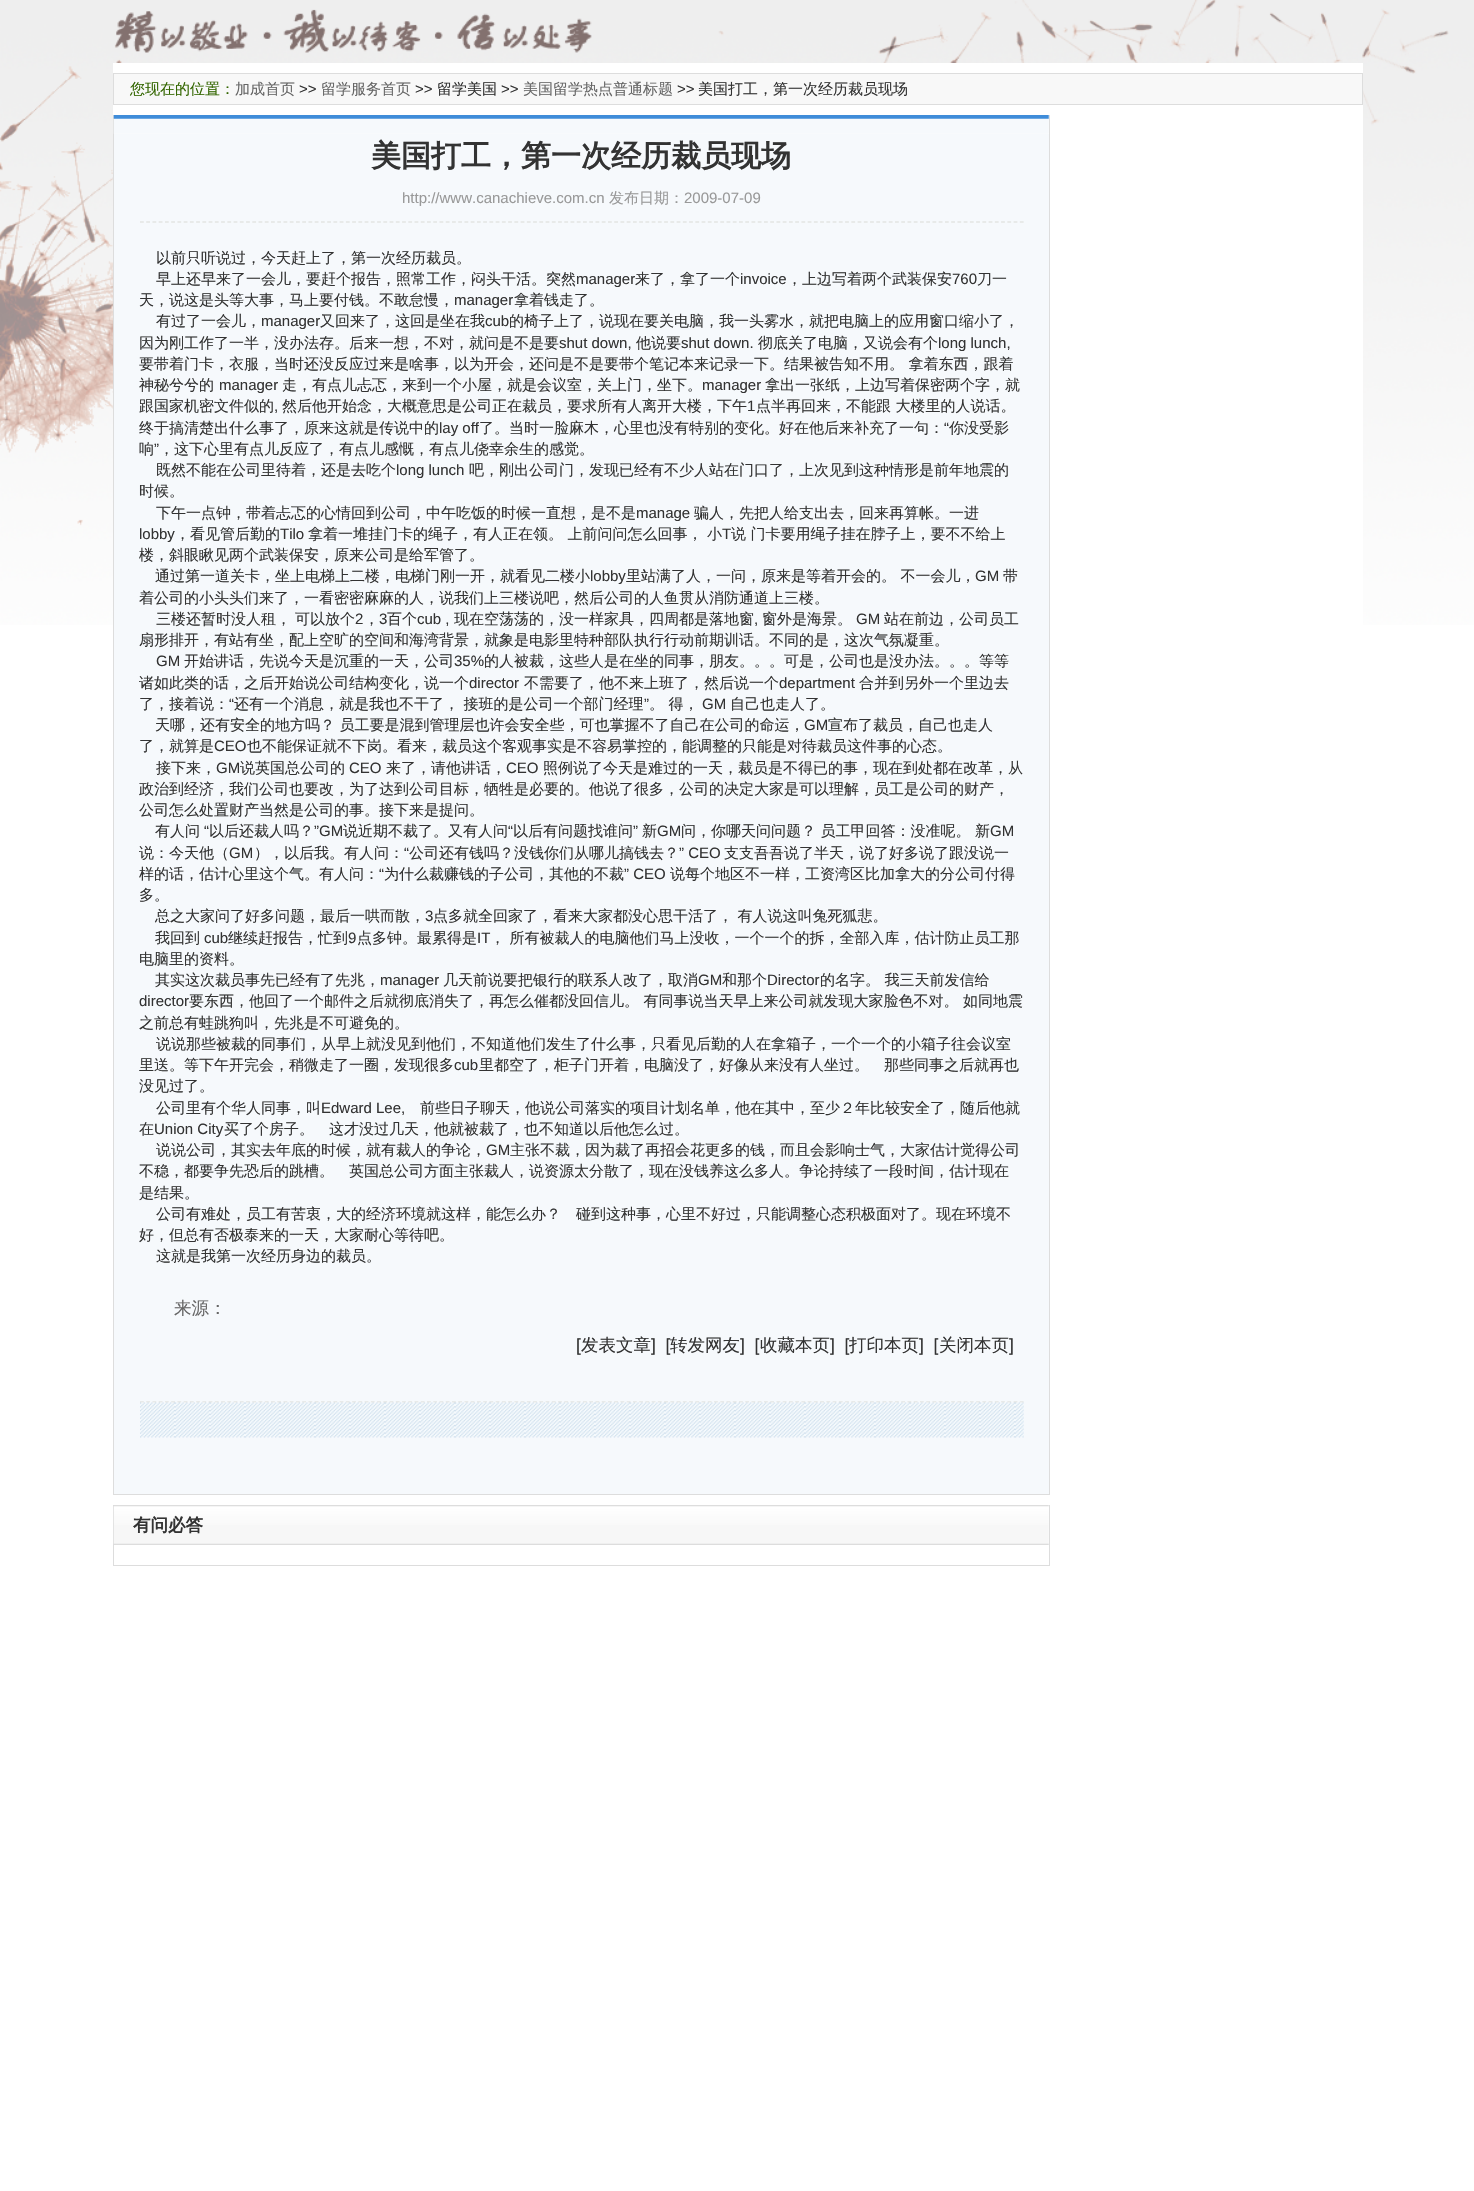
#include "include/core/SkBlurTypes.h"
#include "include/core/SkCanvas.h"
#include "include/core/SkData.h"
#include "include/core/SkFont.h"
#include "include/core/SkFontMgr.h"
#include "include/core/SkImage.h"
#include "include/core/SkMaskFilter.h"
#include "include/core/SkPaint.h"
#include "include/core/SkPathBuilder.h"
#include "include/core/SkTextBlob.h"
#include "include/effects/SkDashPathEffect.h"
#include "include/effects/SkGradientShader.h"
#include "include/utils/SkParsePath.h"

extern sk_sp<SkFontMgr> fontMgr;

static SkFont font(const char* family, int weight, float size, bool italic = false) {
    SkFontStyle style(weight, SkFontStyle::kNormal_Width,
        italic ? SkFontStyle::kItalic_Slant : SkFontStyle::kUpright_Slant);
    SkFont result(fontMgr->matchFamilyStyle(family, style), size);
    result.setSubpixel(true);
    return result;
}

static void drawLabel(SkCanvas* canvas, const char* s, float x, float y, const SkFont& font, SkColor color) {
    SkPaint ink(SkColor4f::FromColor(color));
    ink.setAntiAlias(true);
    canvas->drawString(s, x, y, font, ink);
}

static void fillRect(SkCanvas* canvas, float x, float y, float w, float h, SkColor color) {
    SkPaint ink(SkColor4f::FromColor(color));
    ink.setAntiAlias(true);
    canvas->drawRect(SkRect::MakeXYWH(x, y, w, h), ink);
}

static void drawPhoto(SkCanvas* canvas, const char* path, float x, float y, float w, float h) {
    auto image = SkImages::DeferredFromEncodedData(SkData::MakeFromFileName(path));
    canvas->drawImageRect(image, SkRect::MakeXYWH(x, y, w, h), SkSamplingOptions());
}

static SkPath parsePath(const char* data, bool evenOdd = false) {
    SkPath result = *SkParsePath::FromSVGString(data);
    if (evenOdd) result.setFillType(SkPathFillType::kEvenOdd);
    return result;
}

void draw(SkCanvas* canvas) {
    SkPaint paint;
    paint.setAntiAlias(true);
    canvas->clear(0xFFFFFFFF);
    drawPhoto(canvas, "assets/img1.png", 0, 0, 1474, 625);
    fillRect(canvas, 113, 63, 1250, 562, 0xFFFFFFFF);
    paint.setColor(0xFFF8F8F8);
    canvas->drawRect(SkRect::MakeXYWH(113.5f, 73.5f, 1249, 31), paint);
    paint.setStroke(true);
    paint.setStrokeWidth(1);
    paint.setColor(0xFFDDDDDD);
    canvas->drawRect(SkRect::MakeXYWH(113.5f, 73.5f, 1249, 31), paint);
    SkFont font1 = font("WenQuanYi Zen Hei", 500, 15);
    drawLabel(canvas, "您现在的位置：", 130, 94, font1, 0xFF336600);
    drawLabel(canvas, "加成首页", 235, 94, font1, 0xFF666666);
    SkFont font2 = font("Liberation Sans", 400, 15);
    drawLabel(canvas, ">>", 299, 94, font2, 0xFF333333);
    drawLabel(canvas, "留学服务首页", 321, 94, font1, 0xFF666666);
    drawLabel(canvas, ">>", 415, 94, font2, 0xFF333333);
    drawLabel(canvas, "留学美国", 437, 94, font1, 0xFF333333);
    drawLabel(canvas, ">>", 501, 94, font2, 0xFF333333);
    drawLabel(canvas, "美国留学热点普通标题", 523, 94, font1, 0xFF666666);
    drawLabel(canvas, ">>", 677, 94, font2, 0xFF333333);
    drawLabel(canvas, "美国打工，第一次经历裁员现场", 698, 94, font1, 0xFF333333);
    fillRect(canvas, 1049, 115, 1, 1380, 0xFFDDDDDD);
    fillRect(canvas, 113, 1494, 937, 1, 0xFFDDDDDD);
    fillRect(canvas, 113, 115, 1, 1380, 0xFFDDDDDD);
    drawPhoto(canvas, "assets/img2.png", 113, 115, 936, 19);
    fillRect(canvas, 114, 134, 935, 1360, 0xFFF6F9FC);
    paint.setStrokeWidth(1.2f);
    paint.setColor(0xFFDADBD6);
    paint.setPathEffect(SkDashPathEffect::Make({{3.75f, 2.49f}}, 0));
    canvas->drawPath(parsePath("M140 222H1024"), paint);
    paint.setPathEffect(nullptr);
    SkFont font3 = font("WenQuanYi Zen Hei", 700, 30);
    drawLabel(canvas, "美国打工，第一次经历裁员现场", 371, 166, font3, 0xFF333333);
    drawLabel(canvas, "http://www.canachieve.com.cn", 402, 203, font2, 0xFF999999);
    drawLabel(canvas, "发布日期：", 609, 203, font1, 0xFF999999);
    drawLabel(canvas, "2009-07-09", 684, 203, font2, 0xFF999999);
    paint.setPathEffect(SkDashPathEffect::Make({{3.75f, 2.49f}}, 0));
    canvas->drawPath(parsePath("M140 1402H1024"), paint);
    paint.setPathEffect(nullptr);
    drawLabel(canvas, "以前只听说过，今天赶上了，第一次经历裁员。", 156, 263, font1, 0xFF333333);
    drawLabel(canvas, "早上还早来了一会儿，要赶个报告，照常工作，闷头干活。突然", 156, 284, font1, 0xFF333333);
    drawLabel(canvas, "manager", 576, 284, font2, 0xFF333333);
    drawLabel(canvas, "来了，拿了一个", 635, 284, font1, 0xFF333333);
    drawLabel(canvas, "invoice", 740, 284, font2, 0xFF333333);
    drawLabel(canvas, "，上边写着两个武装保安", 787, 284, font1, 0xFF333333);
    drawLabel(canvas, "760", 952, 284, font2, 0xFF333333);
    drawLabel(canvas, "刀一", 977, 284, font1, 0xFF333333);
    drawLabel(canvas, "天，说这是头等大事，马上要付钱。不敢怠慢，", 139, 305, font1, 0xFF333333);
    drawLabel(canvas, "manager", 454, 305, font2, 0xFF333333);
    drawLabel(canvas, "拿着钱走了。", 514, 305, font1, 0xFF333333);
    drawLabel(canvas, "有过了一会儿，", 156, 326, font1, 0xFF333333);
    drawLabel(canvas, "manager", 261, 326, font2, 0xFF333333);
    drawLabel(canvas, "又回来了，这回是坐在我", 320, 326, font1, 0xFF333333);
    drawLabel(canvas, "cub", 485, 326, font2, 0xFF333333);
    drawLabel(canvas, "的椅子上了，说现在要关电脑，我一头雾水，就把电脑上的应用窗口缩小了，", 509, 326, font1, 0xFF333333);
    drawLabel(canvas, "因为刚工作了一半，没办法存。后来一想，不对，就问是不是要", 139, 348, font1, 0xFF333333);
    drawLabel(canvas, "shut down,", 559, 348, font2, 0xFF333333);
    drawLabel(canvas, "他说要", 636, 348, font1, 0xFF333333);
    drawLabel(canvas, "shut down.", 681, 348, font2, 0xFF333333);
    drawLabel(canvas, "彻底关了电脑，又说会有个", 758, 348, font1, 0xFF333333);
    drawLabel(canvas, "long lunch,", 938, 348, font2, 0xFF333333);
    drawLabel(canvas, "要带着门卡，衣服，当时还没反应过来是啥事，以为开会，还问是不是要带个笔记本来记录一下。结果被告知不用。 拿着东西，跟着", 139, 369, font1, 0xFF333333);
    drawLabel(canvas, "神秘兮兮的", 139, 390, font1, 0xFF333333);
    drawLabel(canvas, "manager", 219, 390, font2, 0xFF333333);
    drawLabel(canvas, "走，有点儿忐忑，来到一个小屋，就是会议室，关上门，坐下。", 282, 390, font1, 0xFF333333);
    drawLabel(canvas, "manager", 702, 390, font2, 0xFF333333);
    drawLabel(canvas, "拿出一张纸，上边写着保密两个字，就", 765, 390, font1, 0xFF333333);
    drawLabel(canvas, "跟国家机密文件似的", 139, 411, font1, 0xFF333333);
    drawLabel(canvas, ",", 274, 411, font2, 0xFF333333);
    drawLabel(canvas, "然后他开始念，大概意思是公司正在裁员，要求所有人离开大楼，下午", 282, 411, font1, 0xFF333333);
    drawLabel(canvas, "1", 747, 411, font2, 0xFF333333);
    drawLabel(canvas, "点半再回来，不能跟 大楼里的人说话。", 756, 411, font1, 0xFF333333);
    drawLabel(canvas, "终于搞清楚出什么事了，原来这就是传说中的", 139, 433, font1, 0xFF333333);
    drawLabel(canvas, "lay off", 439, 433, font2, 0xFF333333);
    drawLabel(canvas, "了。当时一脸麻木，心里也没有特别的变化。好在他后来补充了一句：", 479, 433, font1, 0xFF333333);
    drawLabel(canvas, "“", 944, 433, font2, 0xFF333333);
    drawLabel(canvas, "你没受影", 949, 433, font1, 0xFF333333);
    drawLabel(canvas, "响", 139, 454, font1, 0xFF333333);
    drawLabel(canvas, "”", 154, 454, font2, 0xFF333333);
    drawLabel(canvas, "，这下心里有点儿反应了，有点儿感慨，有点儿侥幸余生的感觉。", 159, 454, font1, 0xFF333333);
    drawLabel(canvas, "既然不能在公司里待着，还是去吃个", 156, 475, font1, 0xFF333333);
    drawLabel(canvas, "long lunch", 396, 475, font2, 0xFF333333);
    drawLabel(canvas, "吧，刚出公司门，发现已经有不少人站在门口了，上次见到这种情形是前年地震的", 469, 475, font1, 0xFF333333);
    drawLabel(canvas, "时候。", 139, 496, font1, 0xFF333333);
    drawLabel(canvas, "下午一点钟，带着忐忑的心情回到公司，中午吃饭的时候一直想，是不是", 156, 518, font1, 0xFF333333);
    drawLabel(canvas, "manage", 636, 518, font2, 0xFF333333);
    drawLabel(canvas, "骗人，先把人给支出去，回来再算帐。一进", 694, 518, font1, 0xFF333333);
    drawLabel(canvas, "lobby", 139, 539, font2, 0xFF333333);
    drawLabel(canvas, "，看见管后勤的", 175, 539, font1, 0xFF333333);
    drawLabel(canvas, "Tilo", 280, 539, font2, 0xFF333333);
    drawLabel(canvas, "拿着一堆挂门卡的绳子，有人正在领。 上前问问怎么回事， 小", 308, 539, font1, 0xFF333333);
    drawLabel(canvas, "T", 722, 539, font2, 0xFF333333);
    drawLabel(canvas, "说 门卡要用绳子挂在脖子上，要不不给上", 731, 539, font1, 0xFF333333);
    drawLabel(canvas, "楼，斜眼瞅见两个武装保安，原来公司是给军管了。", 139, 560, font1, 0xFF333333);
    drawLabel(canvas, "通过第一道关卡，坐上电梯上二楼，电梯门刚一开，就看见二楼小", 155, 581, font1, 0xFF333333);
    drawLabel(canvas, "lobby", 590, 581, font2, 0xFF333333);
    drawLabel(canvas, "里站满了人，一问，原来是等着开会的。 不一会儿，", 626, 581, font1, 0xFF333333);
    drawLabel(canvas, "GM", 975, 581, font2, 0xFF333333);
    drawLabel(canvas, "带", 1003, 581, font1, 0xFF333333);
    drawLabel(canvas, "着公司的小头头们来了，一看密密麻麻的人，说我们上三楼说吧，然后公司的人鱼贯从消防通道上三楼。", 139, 603, font1, 0xFF333333);
    drawLabel(canvas, "三楼还暂时没人租，", 156, 624, font1, 0xFF333333);
    drawLabel(canvas, "可以放个", 295, 624, font1, 0xFF333333);
    drawLabel(canvas, "2", 355, 624, font2, 0xFF333333);
    drawLabel(canvas, "，", 364, 624, font1, 0xFF333333);
    drawLabel(canvas, "3", 379, 624, font2, 0xFF333333);
    drawLabel(canvas, "百个", 387, 624, font1, 0xFF333333);
    drawLabel(canvas, "cub ,", 417, 624, font2, 0xFF333333);
    drawLabel(canvas, "现在空荡荡的，没一样家具，四周都是落地窗", 454, 624, font1, 0xFF333333);
    drawLabel(canvas, ",", 754, 624, font2, 0xFF333333);
    drawLabel(canvas, "窗外是海景。", 762, 624, font1, 0xFF333333);
    drawLabel(canvas, "GM", 856, 624, font2, 0xFF333333);
    drawLabel(canvas, "站在前边，公司员工", 884, 624, font1, 0xFF333333);
    drawLabel(canvas, "扇形排开，有站有坐，配上空旷的空间和海湾背景，就象是电影里特种部队执行行动前期训话。不同的是，这次气氛凝重。", 139, 645, font1, 0xFF333333);
    drawLabel(canvas, "GM", 156, 666, font2, 0xFF333333);
    drawLabel(canvas, "开始讲话，先说今天是沉重的一天，公司", 184, 666, font1, 0xFF333333);
    drawLabel(canvas, "35%", 454, 666, font2, 0xFF333333);
    drawLabel(canvas, "的人被裁，这些人是在坐的同事，朋友。。。可是，公司也是没办法。。。等等", 484, 666, font1, 0xFF333333);
    drawLabel(canvas, "诸如此类的话，之后开始说公司结构变化，说一个", 139, 688, font1, 0xFF333333);
    drawLabel(canvas, "director", 469, 688, font2, 0xFF333333);
    drawLabel(canvas, "不需要了，他不来上班了，然后说一个", 524, 688, font1, 0xFF333333);
    drawLabel(canvas, "department", 779, 688, font2, 0xFF333333);
    drawLabel(canvas, "合并到另外一个里边去", 859, 688, font1, 0xFF333333);
    drawLabel(canvas, "了，接着说：", 139, 709, font1, 0xFF333333);
    drawLabel(canvas, "“", 229, 709, font2, 0xFF333333);
    drawLabel(canvas, "还有一个消息，就是我也不干了， 接班的是公司一个部门经理", 234, 709, font1, 0xFF333333);
    drawLabel(canvas, "”", 644, 709, font2, 0xFF333333);
    drawLabel(canvas, "。 得，", 649, 709, font1, 0xFF333333);
    drawLabel(canvas, "GM", 702, 709, font2, 0xFF333333);
    drawLabel(canvas, "自己也走人了。", 730, 709, font1, 0xFF333333);
    drawLabel(canvas, "天哪，还有安全的地方吗？ 员工要是混到管理层也许会安全些，可也掌握不了自己在公司的命运，", 155, 730, font1, 0xFF333333);
    drawLabel(canvas, "GM", 804, 730, font2, 0xFF333333);
    drawLabel(canvas, "宣布了裁员，自己也走人", 828, 730, font1, 0xFF333333);
    drawLabel(canvas, "了，就算是", 139, 751, font1, 0xFF333333);
    drawLabel(canvas, "CEO", 214, 751, font2, 0xFF333333);
    drawLabel(canvas, "也不能保证就不下岗。看来，裁员这个客观事实是不容易掌控的，能调整的只能是对待裁员这件事的心态。", 247, 751, font1, 0xFF333333);
    drawLabel(canvas, "接下来，", 156, 773, font1, 0xFF333333);
    drawLabel(canvas, "GM", 216, 773, font2, 0xFF333333);
    drawLabel(canvas, "说英国总公司的", 240, 773, font1, 0xFF333333);
    drawLabel(canvas, "CEO", 349, 773, font2, 0xFF333333);
    drawLabel(canvas, "来了，请他讲话，", 386, 773, font1, 0xFF333333);
    drawLabel(canvas, "CEO", 506, 773, font2, 0xFF333333);
    drawLabel(canvas, "照例说了今天是难过的一天，裁员是不得已的事，现在到处都在改革，从", 543, 773, font1, 0xFF333333);
    drawLabel(canvas, "政治到经济，我们公司也要改，为了达到公司目标，牺牲是必要的。他说了很多，公司的决定大家是可以理解，员工是公司的财产，", 139, 794, font1, 0xFF333333);
    drawLabel(canvas, "公司怎么处置财产当然是公司的事。接下来是提问。", 139, 815, font1, 0xFF333333);
    drawLabel(canvas, "有人问", 155, 836, font1, 0xFF333333);
    drawLabel(canvas, "“", 204, 836, font2, 0xFF333333);
    drawLabel(canvas, "以后还裁人吗？", 209, 836, font1, 0xFF333333);
    drawLabel(canvas, "”GM", 314, 836, font2, 0xFF333333);
    drawLabel(canvas, "说近期不裁了。又有人问", 343, 836, font1, 0xFF333333);
    drawLabel(canvas, "“", 508, 836, font2, 0xFF333333);
    drawLabel(canvas, "以后有问题找谁问", 513, 836, font1, 0xFF333333);
    drawLabel(canvas, "”", 633, 836, font2, 0xFF333333);
    drawLabel(canvas, "新", 642, 836, font1, 0xFF333333);
    drawLabel(canvas, "GM", 657, 836, font2, 0xFF333333);
    drawLabel(canvas, "问，你哪天问问题？ 员工甲回答：没准呢。 新", 681, 836, font1, 0xFF333333);
    drawLabel(canvas, "GM", 990, 836, font2, 0xFF333333);
    drawLabel(canvas, "说：今天他（", 139, 858, font1, 0xFF333333);
    drawLabel(canvas, "GM", 229, 858, font2, 0xFF333333);
    drawLabel(canvas, "），以后我。有人问：", 254, 858, font1, 0xFF333333);
    drawLabel(canvas, "“", 404, 858, font2, 0xFF333333);
    drawLabel(canvas, "公司还有钱吗？没钱你们从哪儿搞钱去？", 409, 858, font1, 0xFF333333);
    drawLabel(canvas, "” CEO", 679, 858, font2, 0xFF333333);
    drawLabel(canvas, "支支吾吾说了半天，说了好多说了跟没说一", 724, 858, font1, 0xFF333333);
    drawLabel(canvas, "样的话，估计心里这个气。有人问：", 139, 879, font1, 0xFF333333);
    drawLabel(canvas, "“", 379, 879, font2, 0xFF333333);
    drawLabel(canvas, "为什么裁赚钱的子公司，其他的不裁", 384, 879, font1, 0xFF333333);
    drawLabel(canvas, "” CEO", 624, 879, font2, 0xFF333333);
    drawLabel(canvas, "说每个地区不一样，工资湾区比加拿大的分公司付得", 670, 879, font1, 0xFF333333);
    drawLabel(canvas, "多。", 139, 900, font1, 0xFF333333);
    drawLabel(canvas, "总之大家问了好多问题，最后一哄而散，", 155, 921, font1, 0xFF333333);
    drawLabel(canvas, "3", 425, 921, font2, 0xFF333333);
    drawLabel(canvas, "点多就全回家了，看来大家都没心思干活了， 有人说这叫兔死狐悲。", 433, 921, font1, 0xFF333333);
    drawLabel(canvas, "我回到", 155, 943, font1, 0xFF333333);
    drawLabel(canvas, "cub", 204, 943, font2, 0xFF333333);
    drawLabel(canvas, "继续赶报告，忙到", 228, 943, font1, 0xFF333333);
    drawLabel(canvas, "9", 348, 943, font2, 0xFF333333);
    drawLabel(canvas, "点多钟。最累得是", 357, 943, font1, 0xFF333333);
    drawLabel(canvas, "IT", 477, 943, font2, 0xFF333333);
    drawLabel(canvas, "， 所有被裁人的电脑他们马上没收，一个一个的拆，全部入库，估计防止员工那", 490, 943, font1, 0xFF333333);
    drawLabel(canvas, "电脑里的资料。", 139, 964, font1, 0xFF333333);
    drawLabel(canvas, "其实这次裁员事先已经有了先兆，", 155, 985, font1, 0xFF333333);
    drawLabel(canvas, "manager", 380, 985, font2, 0xFF333333);
    drawLabel(canvas, "几天前说要把银行的联系人改了，取消", 443, 985, font1, 0xFF333333);
    drawLabel(canvas, "GM", 698, 985, font2, 0xFF333333);
    drawLabel(canvas, "和那个", 722, 985, font1, 0xFF333333);
    drawLabel(canvas, "Director", 767, 985, font2, 0xFF333333);
    drawLabel(canvas, "的名字。 我三天前发信给", 820, 985, font1, 0xFF333333);
    drawLabel(canvas, "director", 139, 1006, font2, 0xFF333333);
    drawLabel(canvas, "要东西，他回了一个邮件之后就彻底消失了，再怎么催都没回信儿。 有同事说当天早上来公司就发现大家脸色不对。 如同地震", 189, 1006, font1, 0xFF333333);
    drawLabel(canvas, "之前总有蛙跳狗叫，先兆是不可避免的。", 139, 1028, font1, 0xFF333333);
    drawLabel(canvas, "说说那些被裁的同事们，从早上就没见到他们，不知道他们发生了什么事，只看见后勤的人在拿箱子，一个一个的小箱子往会议室", 156, 1049, font1, 0xFF333333);
    drawLabel(canvas, "里送。等下午开完会，稍微走了一圈，发现很多", 139, 1070, font1, 0xFF333333);
    drawLabel(canvas, "cub", 454, 1070, font2, 0xFF333333);
    drawLabel(canvas, "里都空了，柜子门开着，电脑没了，好像从来没有人坐过。　那些同事之后就再也", 479, 1070, font1, 0xFF333333);
    drawLabel(canvas, "没见过了。", 139, 1091, font1, 0xFF333333);
    drawLabel(canvas, "公司里有个华人同事，叫", 156, 1113, font1, 0xFF333333);
    drawLabel(canvas, "Edward Lee,", 321, 1113, font2, 0xFF333333);
    drawLabel(canvas, "前些日子聊天，他说公司落实的项目计划名单，他在其中，至少２年比较安全了，随后他就", 420, 1113, font1, 0xFF333333);
    drawLabel(canvas, "在", 139, 1134, font1, 0xFF333333);
    drawLabel(canvas, "Union City", 154, 1134, font2, 0xFF333333);
    drawLabel(canvas, "买了个房子。　这才没过几天，他就被裁了，也不知道以后他怎么过。", 224, 1134, font1, 0xFF333333);
    drawLabel(canvas, "说说公司，其实去年底的时候，就有裁人的争论，", 156, 1155, font1, 0xFF333333);
    drawLabel(canvas, "GM", 486, 1155, font2, 0xFF333333);
    drawLabel(canvas, "主张不裁，因为裁了再招会花更多的钱，而且会影响士气，大家估计觉得公司", 510, 1155, font1, 0xFF333333);
    drawLabel(canvas, "不稳，都要争先恐后的跳槽。　英国总公司方面主张裁人，说资源太分散了，现在没钱养这么多人。争论持续了一段时间，估计现在", 139, 1176, font1, 0xFF333333);
    drawLabel(canvas, "是结果。", 139, 1198, font1, 0xFF333333);
    drawLabel(canvas, "公司有难处，员工有苦衷，大的经济环境就这样，能怎么办？　碰到这种事，心里不好过，只能调整心态积极面对了。现在环境不", 156, 1219, font1, 0xFF333333);
    drawLabel(canvas, "好，但总有否极泰来的一天，大家耐心等待吧。", 139, 1240, font1, 0xFF333333);
    drawLabel(canvas, "这就是我第一次经历身边的裁员。", 156, 1261, font1, 0xFF333333);
    SkFont font4 = font("WenQuanYi Zen Hei", 500, 17.5f);
    drawLabel(canvas, "来源：", 174, 1314, font4, 0xFF666666);
    SkFont font5 = font("Liberation Sans", 400, 17.5f);
    drawLabel(canvas, "[", 576, 1351, font5, 0xFF333333);
    drawLabel(canvas, "发表文章", 581, 1351, font4, 0xFF333333);
    drawLabel(canvas, "]  [", 651, 1351, font5, 0xFF333333);
    drawLabel(canvas, "转发网友", 670, 1351, font4, 0xFF333333);
    drawLabel(canvas, "]  [", 740, 1351, font5, 0xFF333333);
    drawLabel(canvas, "收藏本页", 760, 1351, font4, 0xFF333333);
    drawLabel(canvas, "]  [", 830, 1351, font5, 0xFF333333);
    drawLabel(canvas, "打印本页", 849, 1351, font4, 0xFF333333);
    drawLabel(canvas, "]  [", 919, 1351, font5, 0xFF333333);
    drawLabel(canvas, "关闭本页", 939, 1351, font4, 0xFF333333);
    drawLabel(canvas, "]", 1009, 1351, font5, 0xFF333333);
    drawPhoto(canvas, "assets/img3.png", 140, 1402, 884, 36);
    fillRect(canvas, 1049, 1505, 1, 61, 0xFFDDDDDD);
    fillRect(canvas, 113, 1565, 937, 1, 0xFFDDDDDD);
    fillRect(canvas, 113, 1505, 1, 61, 0xFFDDDDDD);
    drawPhoto(canvas, "assets/img4.png", 113, 1505, 936, 40);
    SkFont font6 = font("WenQuanYi Zen Hei", 700, 17.5f);
    drawLabel(canvas, "有问必答", 133, 1531, font6, 0xFF333333);
}
